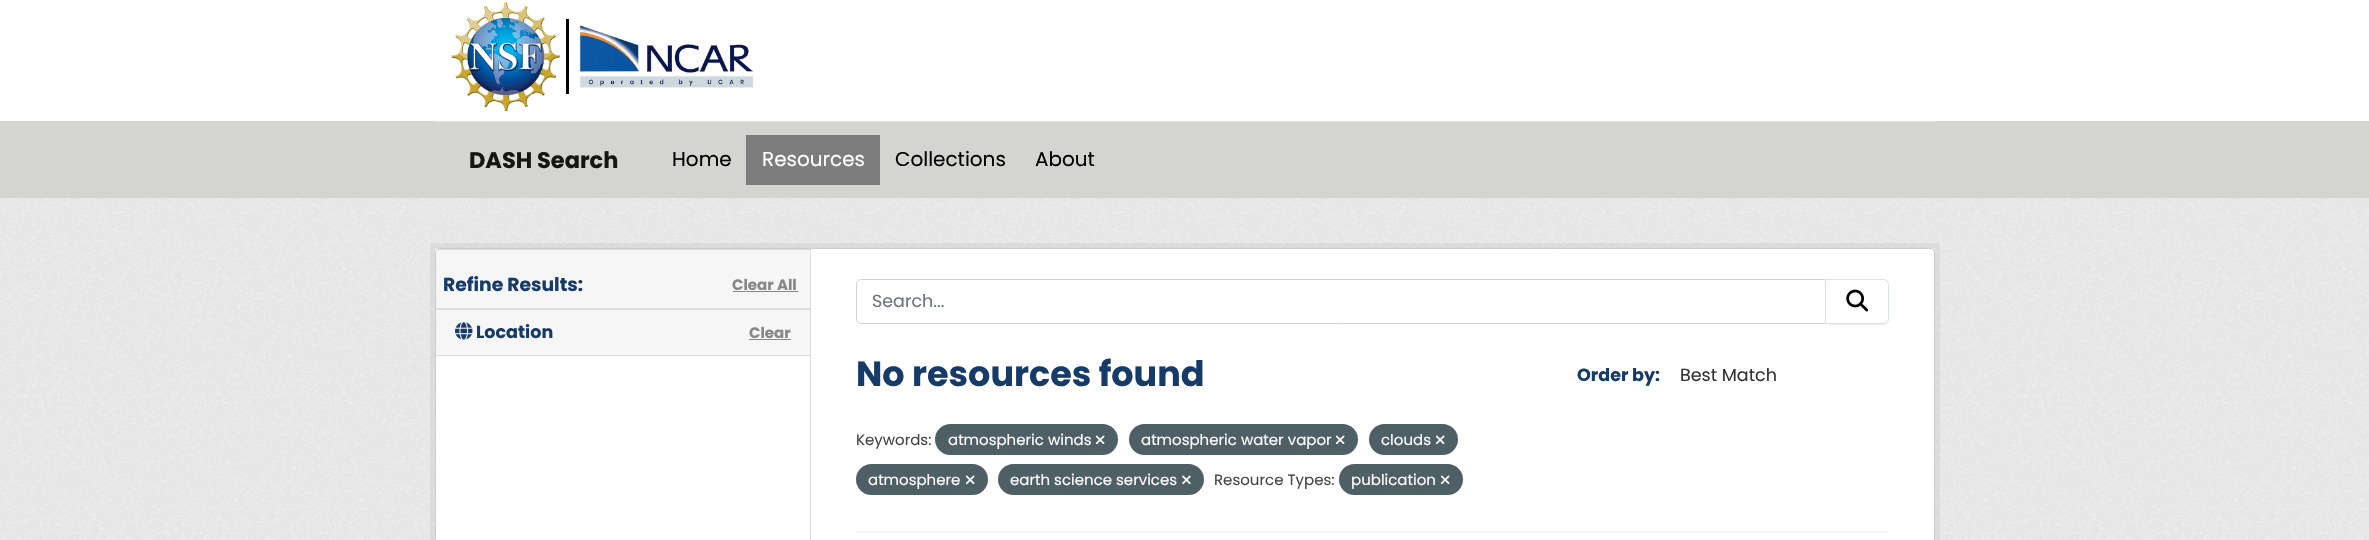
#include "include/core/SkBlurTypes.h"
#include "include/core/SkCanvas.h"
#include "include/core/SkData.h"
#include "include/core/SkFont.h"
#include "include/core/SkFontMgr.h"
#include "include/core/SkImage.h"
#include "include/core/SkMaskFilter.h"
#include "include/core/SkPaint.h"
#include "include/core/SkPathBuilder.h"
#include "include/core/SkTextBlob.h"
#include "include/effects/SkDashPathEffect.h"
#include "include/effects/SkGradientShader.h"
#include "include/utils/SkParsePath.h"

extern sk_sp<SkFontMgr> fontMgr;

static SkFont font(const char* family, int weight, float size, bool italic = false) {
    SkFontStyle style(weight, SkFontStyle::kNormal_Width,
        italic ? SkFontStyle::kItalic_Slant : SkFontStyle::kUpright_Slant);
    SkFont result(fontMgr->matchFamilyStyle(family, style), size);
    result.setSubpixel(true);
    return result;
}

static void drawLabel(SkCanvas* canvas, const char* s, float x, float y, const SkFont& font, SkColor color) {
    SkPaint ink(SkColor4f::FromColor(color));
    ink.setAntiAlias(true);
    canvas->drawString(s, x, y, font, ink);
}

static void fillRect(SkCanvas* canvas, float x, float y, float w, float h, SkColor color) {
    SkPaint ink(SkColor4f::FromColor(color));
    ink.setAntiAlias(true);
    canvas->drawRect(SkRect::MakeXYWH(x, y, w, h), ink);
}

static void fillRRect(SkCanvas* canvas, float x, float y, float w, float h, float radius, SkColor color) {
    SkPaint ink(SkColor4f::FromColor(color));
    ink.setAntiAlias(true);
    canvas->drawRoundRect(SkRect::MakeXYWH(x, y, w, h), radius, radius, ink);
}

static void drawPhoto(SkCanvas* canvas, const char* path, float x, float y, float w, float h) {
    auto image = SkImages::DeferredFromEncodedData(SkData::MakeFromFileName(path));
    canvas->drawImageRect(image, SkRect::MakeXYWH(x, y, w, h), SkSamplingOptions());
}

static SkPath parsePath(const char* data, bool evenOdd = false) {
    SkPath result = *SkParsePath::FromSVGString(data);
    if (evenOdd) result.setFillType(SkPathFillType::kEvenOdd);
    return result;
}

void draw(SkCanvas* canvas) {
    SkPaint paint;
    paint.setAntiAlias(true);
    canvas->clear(0xFFFFFFFF);
    drawPhoto(canvas, "assets/img1.png", 451, 2, 109, 109);
    fillRect(canvas, 566, 19, 3, 75, 0xFF000000);
    drawPhoto(canvas, "assets/img2.png", 580, 25, 173, 63);
    fillRect(canvas, 0, 121, 2369, 77, 0xFFD4D4D0);
    fillRect(canvas, 435, 121, 1500, 1, 0xFFDEE2E6);
    SkFont font1 = font("Poppins", 700, 22.5f);
    drawLabel(canvas, "DASH Search", 469, 168, font1, 0xFF151515);
    SkFont font2 = font("Poppins", 400, 20);
    drawLabel(canvas, "Home", 672, 166, font2, 0xFF000000);
    fillRect(canvas, 746, 135, 134, 50, 0xFF7C7C7C);
    drawLabel(canvas, "Resources", 762, 166, font2, 0xFFFFFFFF);
    drawLabel(canvas, "Collections", 895, 166, font2, 0xFF000000);
    drawLabel(canvas, "About", 1035, 166, font2, 0xFF000000);
    fillRect(canvas, 0, 198, 2369, 342, 0xFFEEEEEE);
    drawPhoto(canvas, "assets/img3.png", 0, 198, 2369, 342);
    paint.setStroke(true);
    paint.setStrokeWidth(5);
    paint.setColor(0x0D000000);
    canvas->drawRect(SkRect::MakeXYWH(432.5f, 245.5f, 1505, 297), paint);
    paint.setStroke(false);
    paint.setColor(0xFFFFFFFF);
    canvas->drawRoundRect(SkRect::MakeXYWH(435.5f, 248.5f, 1499, 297), 4.5f, 4.5f, paint);
    paint.setStroke(true);
    paint.setStrokeWidth(1);
    paint.setColor(0xFFCCCCCC);
    canvas->drawRoundRect(SkRect::MakeXYWH(435.5f, 248.5f, 1499, 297), 4.5f, 4.5f, paint);
    fillRect(canvas, 436, 250, 374, 58, 0xFFF6F6F6);
    fillRect(canvas, 436, 249, 374, 1, 0xFFDDDDDD);
    fillRect(canvas, 436, 308, 374, 2, 0xFFDDDDDD);
    SkFont font3 = font("Poppins", 700, 18.75f);
    drawLabel(canvas, "Refine Results:", 443, 291, font3, 0xFF163B69);
    SkFont font4 = font("Poppins", 700, 15);
    drawLabel(canvas, "Clear All", 732, 290, font4, 0xFF888888);
    fillRect(canvas, 733, 291, 65, 1, 0xFF888888);
    fillRect(canvas, 436, 310, 374, 45, 0xFFF6F6F6);
    fillRect(canvas, 436, 355, 374, 1, 0xFFDDDDDD);
    drawPhoto(canvas, "assets/img4.png", 455, 322, 18, 18);
    SkFont font5 = font("Poppins", 700, 17.5f);
    drawLabel(canvas, "Location", 476, 338, font5, 0xFF163B69);
    drawLabel(canvas, "Clear", 749, 338, font4, 0xFF888888);
    fillRect(canvas, 749, 339, 42, 1, 0xFF888888);
    fillRect(canvas, 810, 249, 1, 291, 0xFFDDDDDD);
    paint.setStrokeWidth(1.2f);
    paint.setColor(0xFFDDDDDD);
    paint.setPathEffect(SkDashPathEffect::Make({{1.25f, 1.25f}}, 0));
    canvas->drawPath(parsePath("M856 532H1889"), paint);
    paint.setPathEffect(nullptr);
    paint.setStrokeWidth(1);
    paint.setColor(0xFFCED4DA);
    canvas->drawPath(parsePath("M861 279.5H1825.5V323.5H861C858.5 323.5 856.5 321.5 856.5 319V284C856.5 281.5 858.5 279.5 861 279.5Z"), paint);
    SkFont font6 = font("Poppins", 400, 17.5f);
    drawLabel(canvas, "Search...", 872, 307, font6, 0xFF6C757D);
    paint.setStroke(false);
    paint.setColor(0x12000000);
    paint.setMaskFilter(SkMaskFilter::MakeBlur(kNormal_SkBlurStyle, 0.5f));
    canvas->drawRoundRect(SkRect::MakeXYWH(1825, 280, 64, 45), 6, 6, paint);
    paint.setMaskFilter(nullptr);
    paint.setColor(0xFFFFFFFF);
    canvas->drawPath(parsePath("M1825.5 279.5H1883C1886 279.5 1888.5 282 1888.5 285V318C1888.5 321 1886 323.5 1883 323.5H1825.5Z"), paint);
    paint.setStroke(true);
    paint.setColor(0xFFDEE2E6);
    canvas->drawPath(parsePath("M1825.5 279.5H1883C1886 279.5 1888.5 282 1888.5 285V318C1888.5 321 1886 323.5 1883 323.5H1825.5Z"), paint);
    drawPhoto(canvas, "assets/img5.png", 1846, 289, 23, 23);
    SkFont font7 = font("Poppins", 700, 35);
    drawLabel(canvas, "No resources found", 856, 386, font7, 0xFF163B69);
    drawLabel(canvas, "Order by:", 1577, 381, font5, 0xFF163B69);
    drawLabel(canvas, "Best Match", 1680, 381, font6, 0xFF333333);
    SkFont font8 = font("Poppins", 400, 15);
    drawLabel(canvas, "Keywords:", 856, 445, font8, 0xFF444444);
    fillRRect(canvas, 935, 424, 183, 31, 15.5f, 0xFF4E5F65);
    drawLabel(canvas, "atmospheric winds", 948, 445, font8, 0xFFFFFFFF);
    drawPhoto(canvas, "assets/img6.png", 1095, 435, 10, 10);
    fillRRect(canvas, 1129, 424, 229, 31, 15.5f, 0xFF4E5F65);
    drawLabel(canvas, "atmospheric water vapor", 1141, 445, font8, 0xFFFFFFFF);
    drawPhoto(canvas, "assets/img6.png", 1335, 435, 10, 10);
    fillRRect(canvas, 1369, 424, 89, 31, 15.5f, 0xFF4E5F65);
    drawLabel(canvas, "clouds", 1381, 445, font8, 0xFFFFFFFF);
    drawPhoto(canvas, "assets/img6.png", 1435, 435, 10, 10);
    fillRRect(canvas, 856, 464, 132, 31, 15.5f, 0xFF4E5F65);
    drawLabel(canvas, "atmosphere", 868, 485, font8, 0xFFFFFFFF);
    drawPhoto(canvas, "assets/img6.png", 965, 475, 10, 10);
    fillRRect(canvas, 998, 464, 206, 31, 15.5f, 0xFF4E5F65);
    drawLabel(canvas, "earth science services", 1010, 485, font8, 0xFFFFFFFF);
    drawPhoto(canvas, "assets/img7.png", 1182, 475, 9, 10);
    drawLabel(canvas, "Resource Types:", 1214, 485, font8, 0xFF444444);
    fillRRect(canvas, 1339, 464, 124, 31, 15.5f, 0xFF4E5F65);
    drawLabel(canvas, "publication", 1351, 485, font8, 0xFFFFFFFF);
    drawPhoto(canvas, "assets/img6.png", 1440, 475, 10, 10);
}
